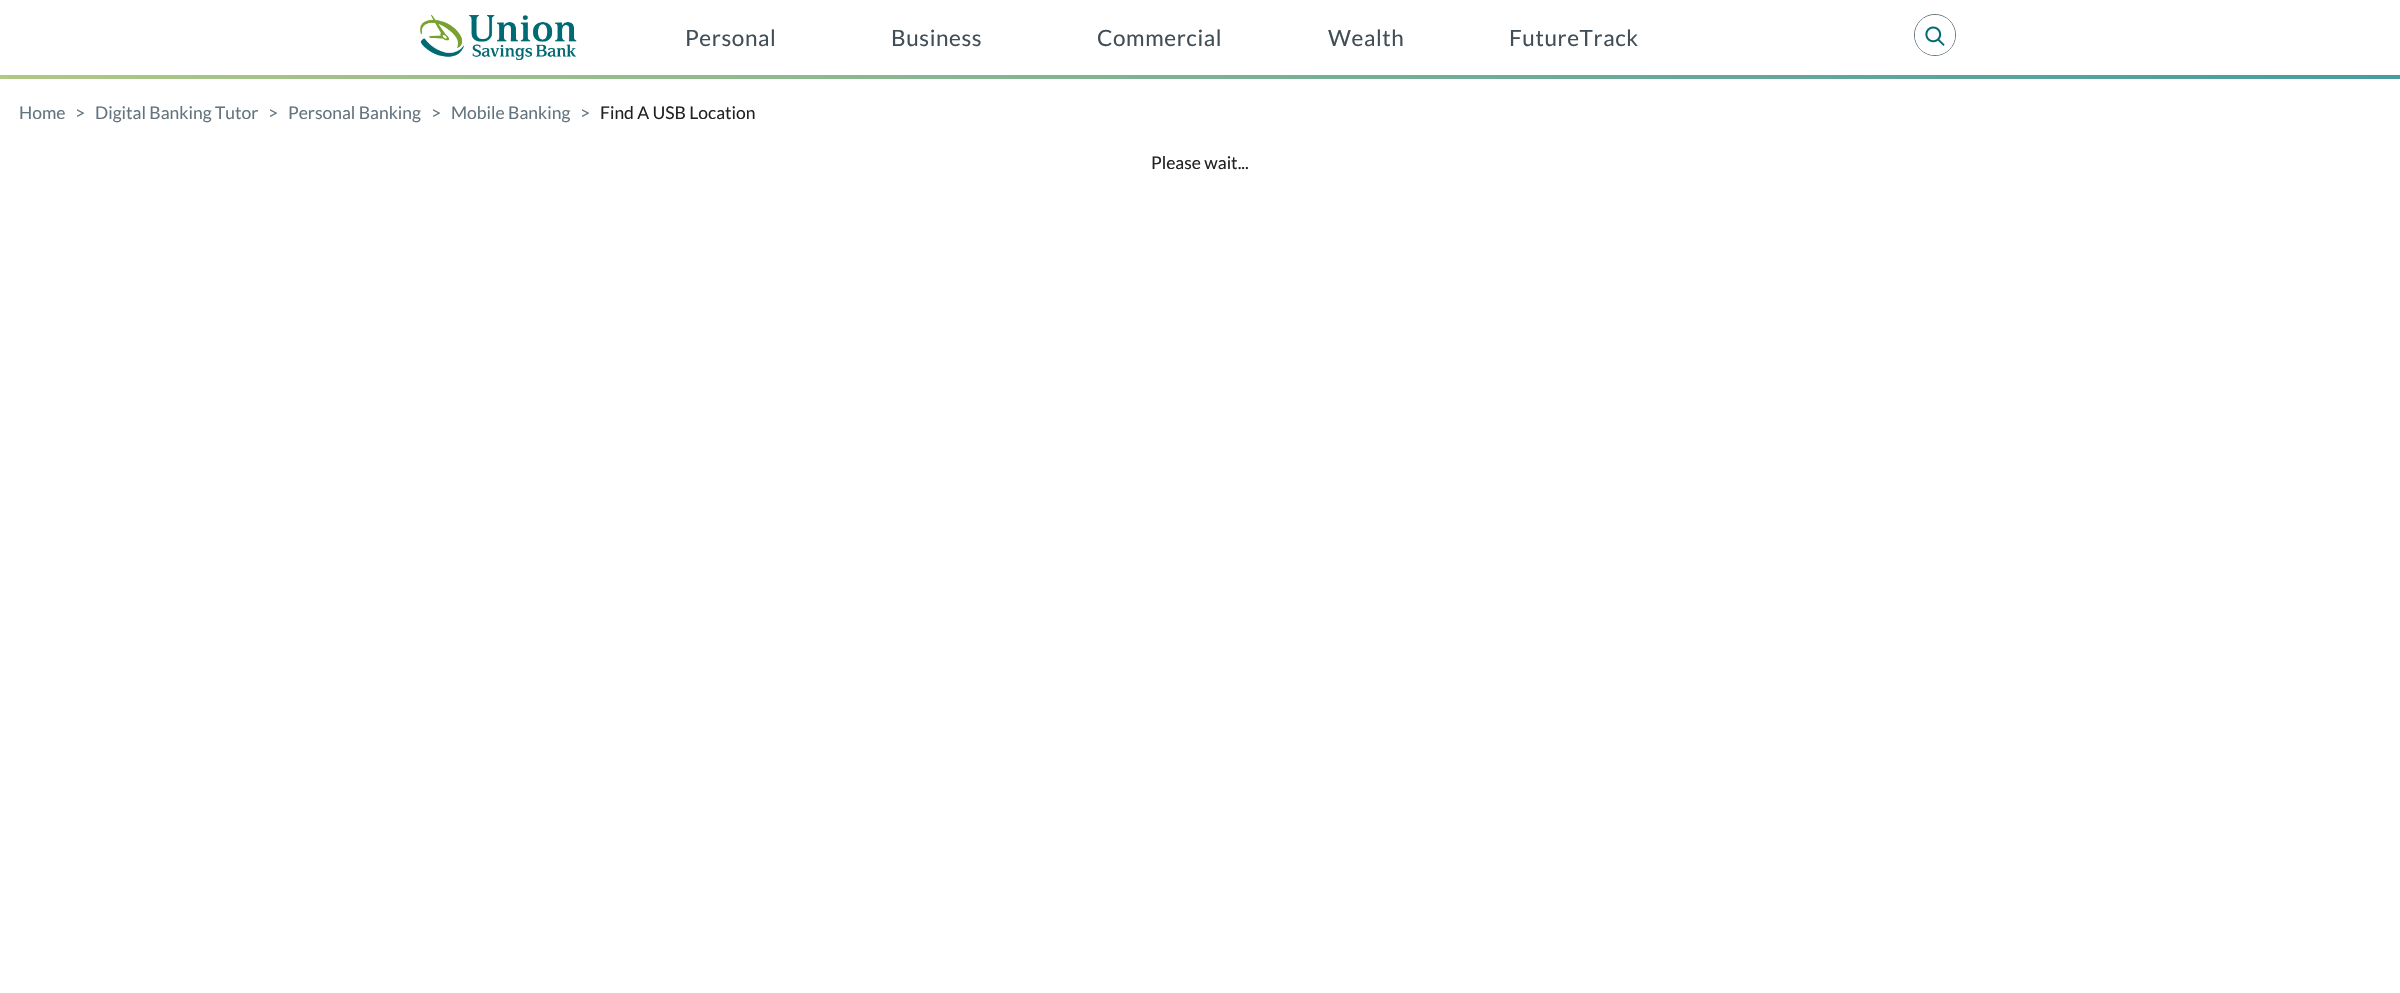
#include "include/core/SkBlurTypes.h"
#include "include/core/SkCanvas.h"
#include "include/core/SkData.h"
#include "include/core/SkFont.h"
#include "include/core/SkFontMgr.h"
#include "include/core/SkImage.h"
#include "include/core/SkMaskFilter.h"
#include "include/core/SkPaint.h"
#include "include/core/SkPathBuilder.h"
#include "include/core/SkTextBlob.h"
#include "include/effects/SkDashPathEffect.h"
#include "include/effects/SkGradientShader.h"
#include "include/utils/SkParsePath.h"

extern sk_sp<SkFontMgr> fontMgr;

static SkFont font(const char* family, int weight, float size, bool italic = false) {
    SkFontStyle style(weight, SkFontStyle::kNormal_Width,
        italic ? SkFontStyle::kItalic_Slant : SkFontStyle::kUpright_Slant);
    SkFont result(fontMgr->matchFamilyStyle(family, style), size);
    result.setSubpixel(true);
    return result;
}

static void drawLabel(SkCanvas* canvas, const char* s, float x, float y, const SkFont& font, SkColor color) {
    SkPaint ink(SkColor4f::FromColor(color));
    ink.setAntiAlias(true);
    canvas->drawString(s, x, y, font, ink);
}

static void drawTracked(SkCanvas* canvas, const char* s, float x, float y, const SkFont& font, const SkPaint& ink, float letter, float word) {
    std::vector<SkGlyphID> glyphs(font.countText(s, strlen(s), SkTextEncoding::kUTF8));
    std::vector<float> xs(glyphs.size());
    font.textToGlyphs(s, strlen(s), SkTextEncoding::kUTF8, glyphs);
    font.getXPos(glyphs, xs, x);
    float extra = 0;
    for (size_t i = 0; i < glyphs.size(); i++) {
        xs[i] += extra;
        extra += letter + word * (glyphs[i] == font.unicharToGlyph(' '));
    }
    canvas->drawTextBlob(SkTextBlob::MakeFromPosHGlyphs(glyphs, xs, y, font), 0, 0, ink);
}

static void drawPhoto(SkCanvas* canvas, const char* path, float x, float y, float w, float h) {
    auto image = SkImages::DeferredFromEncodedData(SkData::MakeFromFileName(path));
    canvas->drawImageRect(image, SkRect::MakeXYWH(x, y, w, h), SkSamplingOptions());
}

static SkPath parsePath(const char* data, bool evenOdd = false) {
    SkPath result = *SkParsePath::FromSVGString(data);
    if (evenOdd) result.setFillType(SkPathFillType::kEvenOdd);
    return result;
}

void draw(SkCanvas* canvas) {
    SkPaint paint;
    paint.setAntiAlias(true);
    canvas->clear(0xFFFFFFFF);
    drawPhoto(canvas, "assets/img1.png", 420, 15, 157, 45);
    SkFont font1 = font("Lato", 400, 22.5f);
    paint.setColor(0xFF414E57);
    drawTracked(canvas, "Personal", 685, 46, font1, paint, 0.6f, 0);
    drawTracked(canvas, "Business", 891, 46, font1, paint, 0.6f, 0);
    drawTracked(canvas, "Commercial", 1097, 46, font1, paint, 0.6f, 0);
    drawTracked(canvas, "Wealth", 1328, 46, font1, paint, 0.6f, 0);
    drawTracked(canvas, "FutureTrack", 1509, 46, font1, paint, 0.6f, 0);
    paint.setStroke(true);
    paint.setStrokeWidth(1);
    paint.setColor(0xFF63747E);
    canvas->drawCircle(1935, 35, 20.5f, paint);
    paint.setStroke(false);
    paint.setColor(0xFFFFFFFF);
    canvas->drawCircle(1935, 35, 20, paint);
    canvas->save();
    canvas->clipPath(parsePath("M1935 15C1946 15 1955 24 1955 35C1955 46 1946 55 1935 55C1924 55 1915 46 1915 35C1915 24 1924 15 1935 15Z"), true);
    canvas->drawCircle(1935, 36, 20, paint);
    canvas->restore();
    drawPhoto(canvas, "assets/img2.png", 1925, 26, 20, 20);
    {
        const SkColor colors[] = {0xFFAFC884, 0xFF489CA1};
        const float stops[] = {0, 1};
        const SkPoint ends[] = {{0, 77}, {2400, 77}};
        paint.setShader(SkGradientShader::MakeLinear(ends, colors, stops, 2, SkTileMode::kClamp));
        paint.setAlpha(255);
    }
    canvas->drawRect(SkRect::MakeXYWH(0, 75, 2400, 4), paint);
    SkFont font2 = font("Lato", 400, 17.5f);
    drawLabel(canvas, "Home", 19, 119, font2, 0xFF63747E);
    drawLabel(canvas, ">", 75, 119, font2, 0xFF63747E);
    drawLabel(canvas, "Digital Banking Tutor", 95, 119, font2, 0xFF63747E);
    drawLabel(canvas, ">", 268, 119, font2, 0xFF63747E);
    drawLabel(canvas, "Personal Banking", 288, 119, font2, 0xFF63747E);
    drawLabel(canvas, ">", 431, 119, font2, 0xFF63747E);
    drawLabel(canvas, "Mobile Banking", 451, 119, font2, 0xFF63747E);
    drawLabel(canvas, ">", 580, 119, font2, 0xFF63747E);
    drawLabel(canvas, "Find A USB Location", 600, 119, font2, 0xFF222222);
    drawLabel(canvas, "Please wait...", 1151, 169, font2, 0xFF222222);
}
